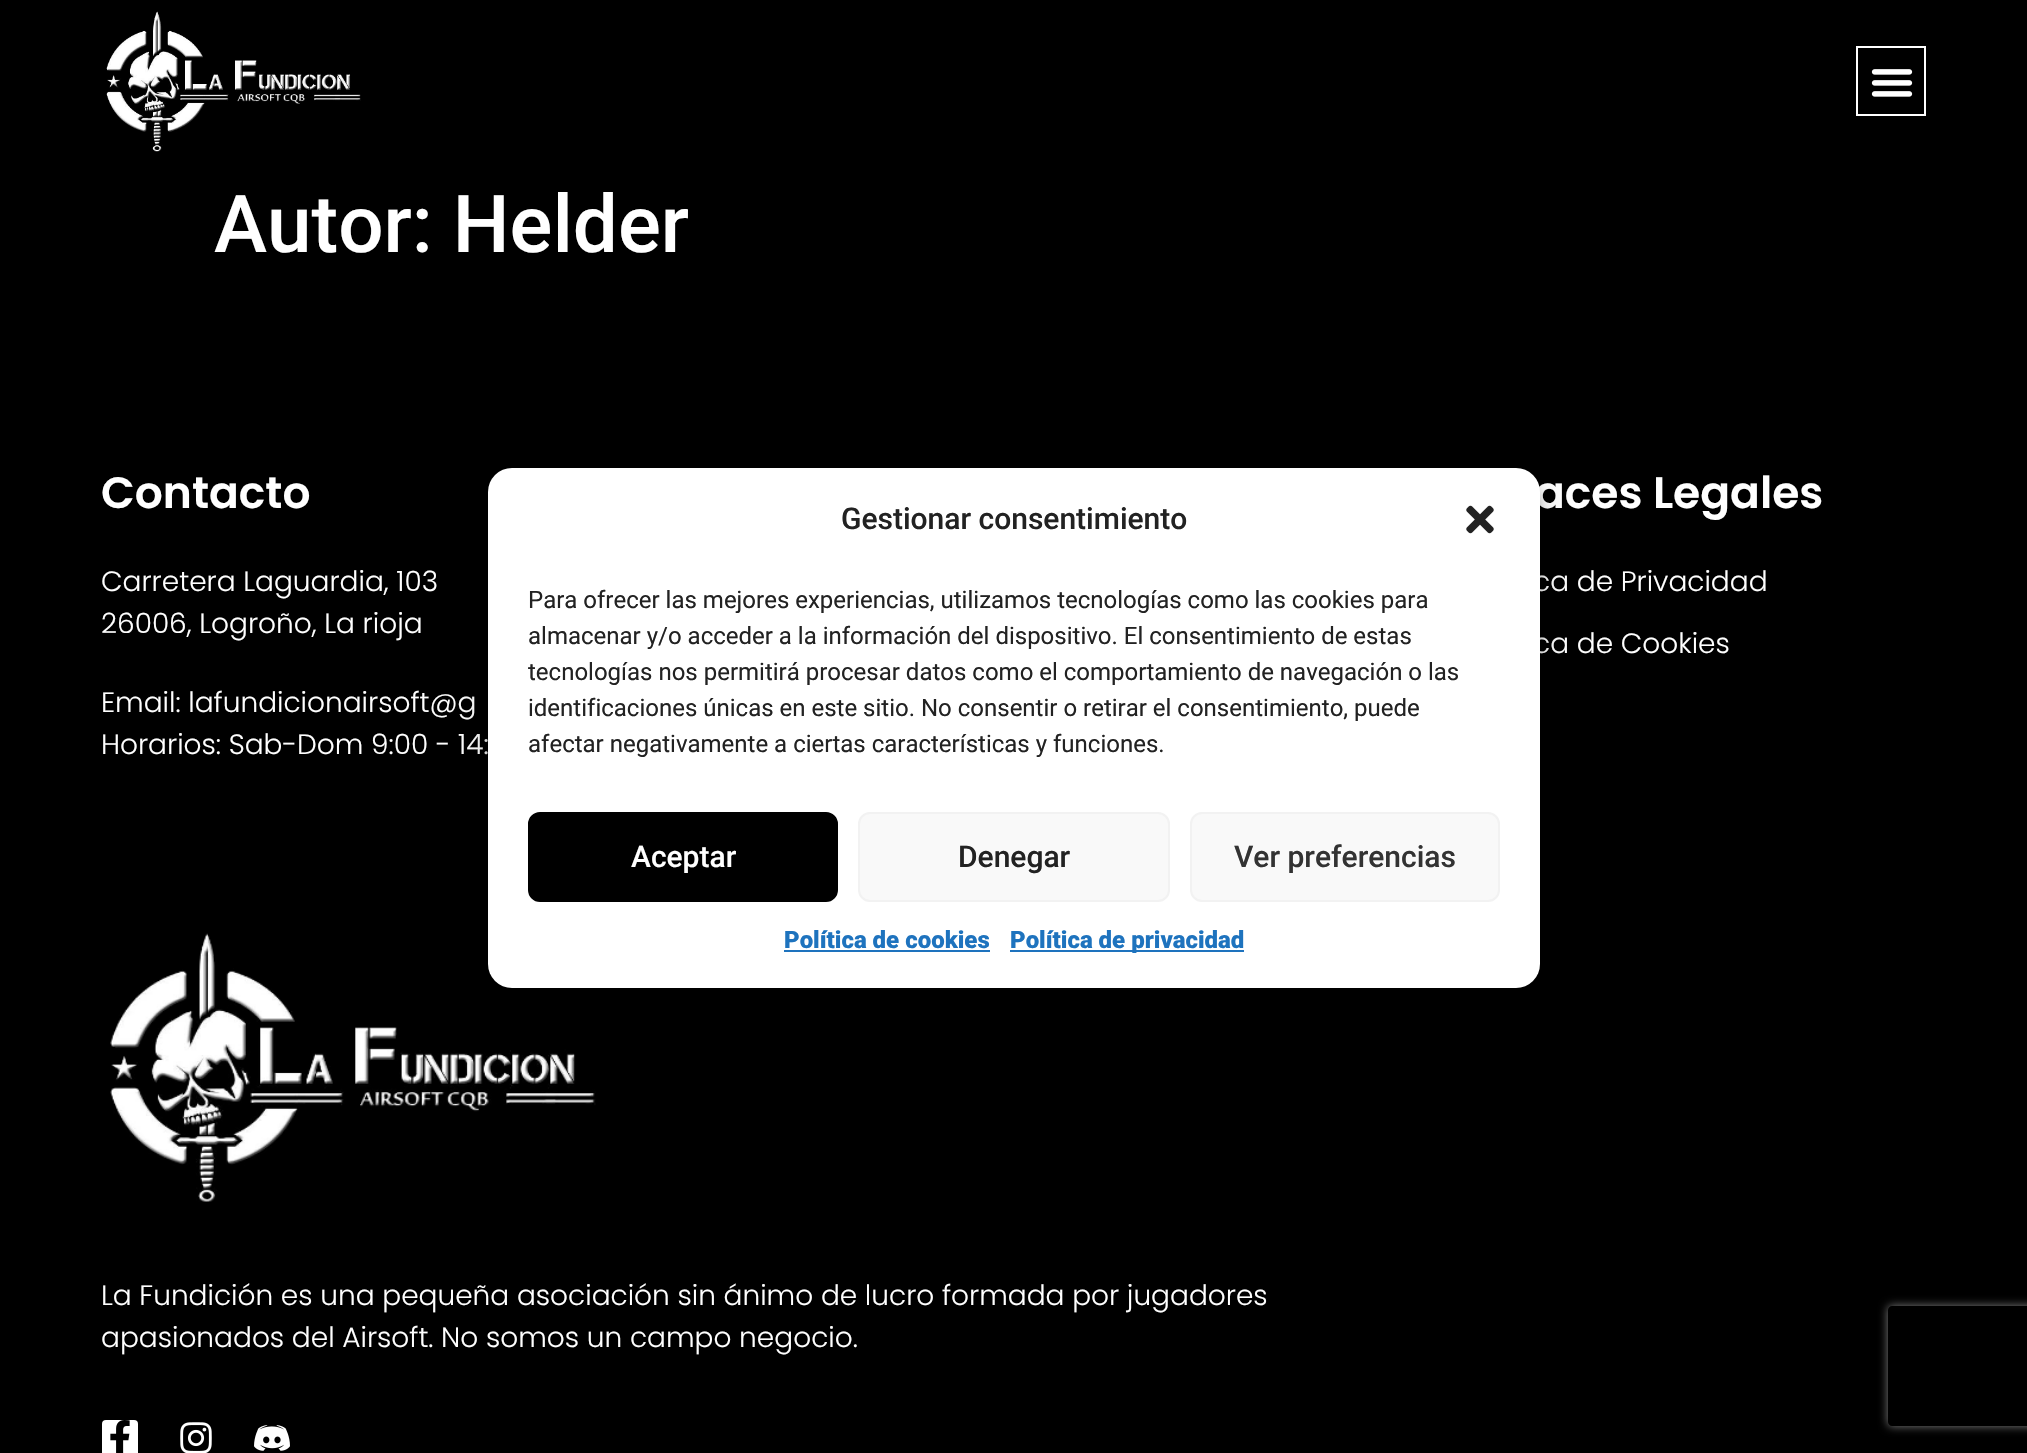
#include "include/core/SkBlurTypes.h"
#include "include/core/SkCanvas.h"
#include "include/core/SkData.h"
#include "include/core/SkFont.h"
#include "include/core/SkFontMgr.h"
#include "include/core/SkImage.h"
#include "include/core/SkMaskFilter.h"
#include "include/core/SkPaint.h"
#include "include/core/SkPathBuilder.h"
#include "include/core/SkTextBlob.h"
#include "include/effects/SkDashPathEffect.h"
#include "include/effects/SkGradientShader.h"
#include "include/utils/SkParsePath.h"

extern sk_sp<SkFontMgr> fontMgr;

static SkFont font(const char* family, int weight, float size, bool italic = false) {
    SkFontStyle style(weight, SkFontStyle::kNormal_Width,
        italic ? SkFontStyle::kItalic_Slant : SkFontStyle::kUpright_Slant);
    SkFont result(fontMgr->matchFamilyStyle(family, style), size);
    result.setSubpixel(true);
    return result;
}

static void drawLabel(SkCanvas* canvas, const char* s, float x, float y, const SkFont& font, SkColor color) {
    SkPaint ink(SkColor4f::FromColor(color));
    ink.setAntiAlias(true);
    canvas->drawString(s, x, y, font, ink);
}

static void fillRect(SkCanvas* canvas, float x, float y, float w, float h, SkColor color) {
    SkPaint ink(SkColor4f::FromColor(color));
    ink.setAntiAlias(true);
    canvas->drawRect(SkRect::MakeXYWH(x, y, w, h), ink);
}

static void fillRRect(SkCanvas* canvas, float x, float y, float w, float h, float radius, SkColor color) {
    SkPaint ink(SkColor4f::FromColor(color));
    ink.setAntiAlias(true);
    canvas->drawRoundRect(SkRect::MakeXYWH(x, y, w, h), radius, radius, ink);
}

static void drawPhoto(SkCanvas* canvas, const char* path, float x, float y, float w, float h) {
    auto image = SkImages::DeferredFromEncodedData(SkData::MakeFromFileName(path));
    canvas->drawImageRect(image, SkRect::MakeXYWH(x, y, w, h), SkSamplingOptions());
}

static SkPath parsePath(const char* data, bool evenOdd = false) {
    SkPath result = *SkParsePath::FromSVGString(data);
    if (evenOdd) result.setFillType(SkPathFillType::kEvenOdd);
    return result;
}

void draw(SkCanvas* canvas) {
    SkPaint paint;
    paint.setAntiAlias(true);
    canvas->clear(0xFF000000);
    drawPhoto(canvas, "assets/img1.png", 106, 11, 255, 141);
    paint.setStroke(true);
    paint.setStrokeWidth(2);
    paint.setColor(0xFFFFFFFF);
    canvas->drawRect(SkRect::MakeXYWH(1857, 47, 68, 68), paint);
    drawPhoto(canvas, "assets/img2.png", 1871, 69, 42, 28);
    SkFont font1 = font("Roboto", 500, 80);
    drawLabel(canvas, "Autor: Helder", 214, 252, font1, 0xFFFFFFFF);
    SkFont font2 = font("Poppins", 600, 44);
    drawLabel(canvas, "Contacto", 101, 508, font2, 0xFFFFFFFF);
    SkFont font3 = font("Poppins", 300, 28);
    drawLabel(canvas, "Carretera Laguardia, 103", 101, 591, font3, 0xFFFFFFFF);
    drawLabel(canvas, "26006, Logroño, La rioja", 101, 633, font3, 0xFFFFFFFF);
    drawLabel(canvas, "Email: lafundicionairsoft@g", 101, 712, font3, 0xFFFFFFFF);
    drawLabel(canvas, "Horarios: Sab-Dom 9:00 - 14:", 101, 754, font3, 0xFFFFFFFF);
    drawLabel(canvas, "aces Legales", 1535, 508, font2, 0xFFFFFFFF);
    drawLabel(canvas, "ca de Privacidad", 1533, 591, font3, 0xFFFFFFFF);
    drawLabel(canvas, "ca de Cookies", 1533, 653, font3, 0xFFFFFFFF);
    drawPhoto(canvas, "assets/img3.png", 110, 933, 486, 269);
    drawLabel(canvas, "La Fundición es una pequeña asociación sin ánimo de lucro formada por jugadores", 101, 1305, font3, 0xFFFFFFFF);
    drawLabel(canvas, "apasionados del Airsoft. No somos un campo negocio.", 101, 1347, font3, 0xFFFFFFFF);
    fillRRect(canvas, 102, 1420, 36, 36, 4, 0xFFFFFFFF);
    drawPhoto(canvas, "assets/img4.png", 110, 1420, 20, 33);
    drawPhoto(canvas, "assets/img5.png", 180, 1422, 32, 31);
    drawPhoto(canvas, "assets/img6.png", 254, 1425, 36, 26);
    paint.setStroke(false);
    paint.setColor(0x3B000000);
    paint.setMaskFilter(SkMaskFilter::MakeBlur(kNormal_SkBlurStyle, 6));
    canvas->drawRoundRect(SkRect::MakeXYWH(488, 480, 1052, 520), 24, 24, paint);
    paint.setMaskFilter(nullptr);
    paint.setColor(0x30000000);
    paint.setMaskFilter(SkMaskFilter::MakeBlur(kNormal_SkBlurStyle, 20));
    canvas->drawRoundRect(SkRect::MakeXYWH(488, 488, 1052, 520), 24, 24, paint);
    paint.setMaskFilter(nullptr);
    fillRRect(canvas, 488, 468, 1052, 520, 24, 0xFFFFFFFF);
    SkFont font4 = font("Roboto", 500, 30);
    drawLabel(canvas, "Gestionar consentimiento", 841, 529, font4, 0xFF222222);
    drawPhoto(canvas, "assets/img7.png", 1466, 505, 28, 29);
    SkFont font5 = font("Roboto", 400, 24);
    drawLabel(canvas, "Para ofrecer las mejores experiencias, utilizamos tecnologías como las cookies para", 528, 608, font5, 0xFF222222);
    drawLabel(canvas, "almacenar y/o acceder a la información del dispositivo. El consentimiento de estas", 528, 644, font5, 0xFF222222);
    drawLabel(canvas, "tecnologías nos permitirá procesar datos como el comportamiento de navegación o las", 528, 680, font5, 0xFF222222);
    drawLabel(canvas, "identificaciones únicas en este sitio. No consentir o retirar el consentimiento, puede", 528, 716, font5, 0xFF222222);
    drawLabel(canvas, "afectar negativamente a ciertas características y funciones.", 528, 752, font5, 0xFF222222);
    paint.setColor(0xFF000000);
    canvas->drawRoundRect(SkRect::MakeXYWH(529, 813, 308, 88), 11, 11, paint);
    paint.setStroke(true);
    canvas->drawRoundRect(SkRect::MakeXYWH(529, 813, 308, 88), 11, 11, paint);
    drawLabel(canvas, "Aceptar", 631, 867, font4, 0xFFFFFFFF);
    paint.setStroke(false);
    paint.setColor(0xFFF9F9F9);
    canvas->drawRoundRect(SkRect::MakeXYWH(859, 813, 310, 88), 11, 11, paint);
    paint.setStroke(true);
    paint.setColor(0xFFF2F2F2);
    canvas->drawRoundRect(SkRect::MakeXYWH(859, 813, 310, 88), 11, 11, paint);
    drawLabel(canvas, "Denegar", 958, 867, font4, 0xFF222222);
    paint.setStroke(false);
    paint.setColor(0xFFF9F9F9);
    canvas->drawRoundRect(SkRect::MakeXYWH(1191, 813, 308, 88), 11, 11, paint);
    paint.setStroke(true);
    paint.setColor(0xFFF2F2F2);
    canvas->drawRoundRect(SkRect::MakeXYWH(1191, 813, 308, 88), 11, 11, paint);
    drawLabel(canvas, "Ver preferencias", 1234, 867, font4, 0xFF333333);
    SkFont font6 = font("Roboto", 900, 24);
    drawLabel(canvas, "Política de cookies", 784, 948, font6, 0xFF1E73BE);
    fillRect(canvas, 784, 950, 206, 2, 0xFF1E73BE);
    fillRect(canvas, 1010, 950, 234, 2, 0xFF1E73BE);
    drawLabel(canvas, "Política de privacidad", 1010, 948, font6, 0xFF1E73BE);
    canvas->save();
    canvas->clipPath(parsePath("M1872 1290H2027V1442H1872ZM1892 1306H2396C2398 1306 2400 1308 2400 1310V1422C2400 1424 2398 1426 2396 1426H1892C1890 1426 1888 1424 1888 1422V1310C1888 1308 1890 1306 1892 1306Z", true), true);
    paint.setStroke(false);
    paint.setColor(0xFF808080);
    paint.setMaskFilter(SkMaskFilter::MakeBlur(kNormal_SkBlurStyle, 5));
    canvas->drawRoundRect(SkRect::MakeXYWH(1888, 1306, 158, 120), 4, 4, paint);
    paint.setMaskFilter(nullptr);
    canvas->restore();
}
